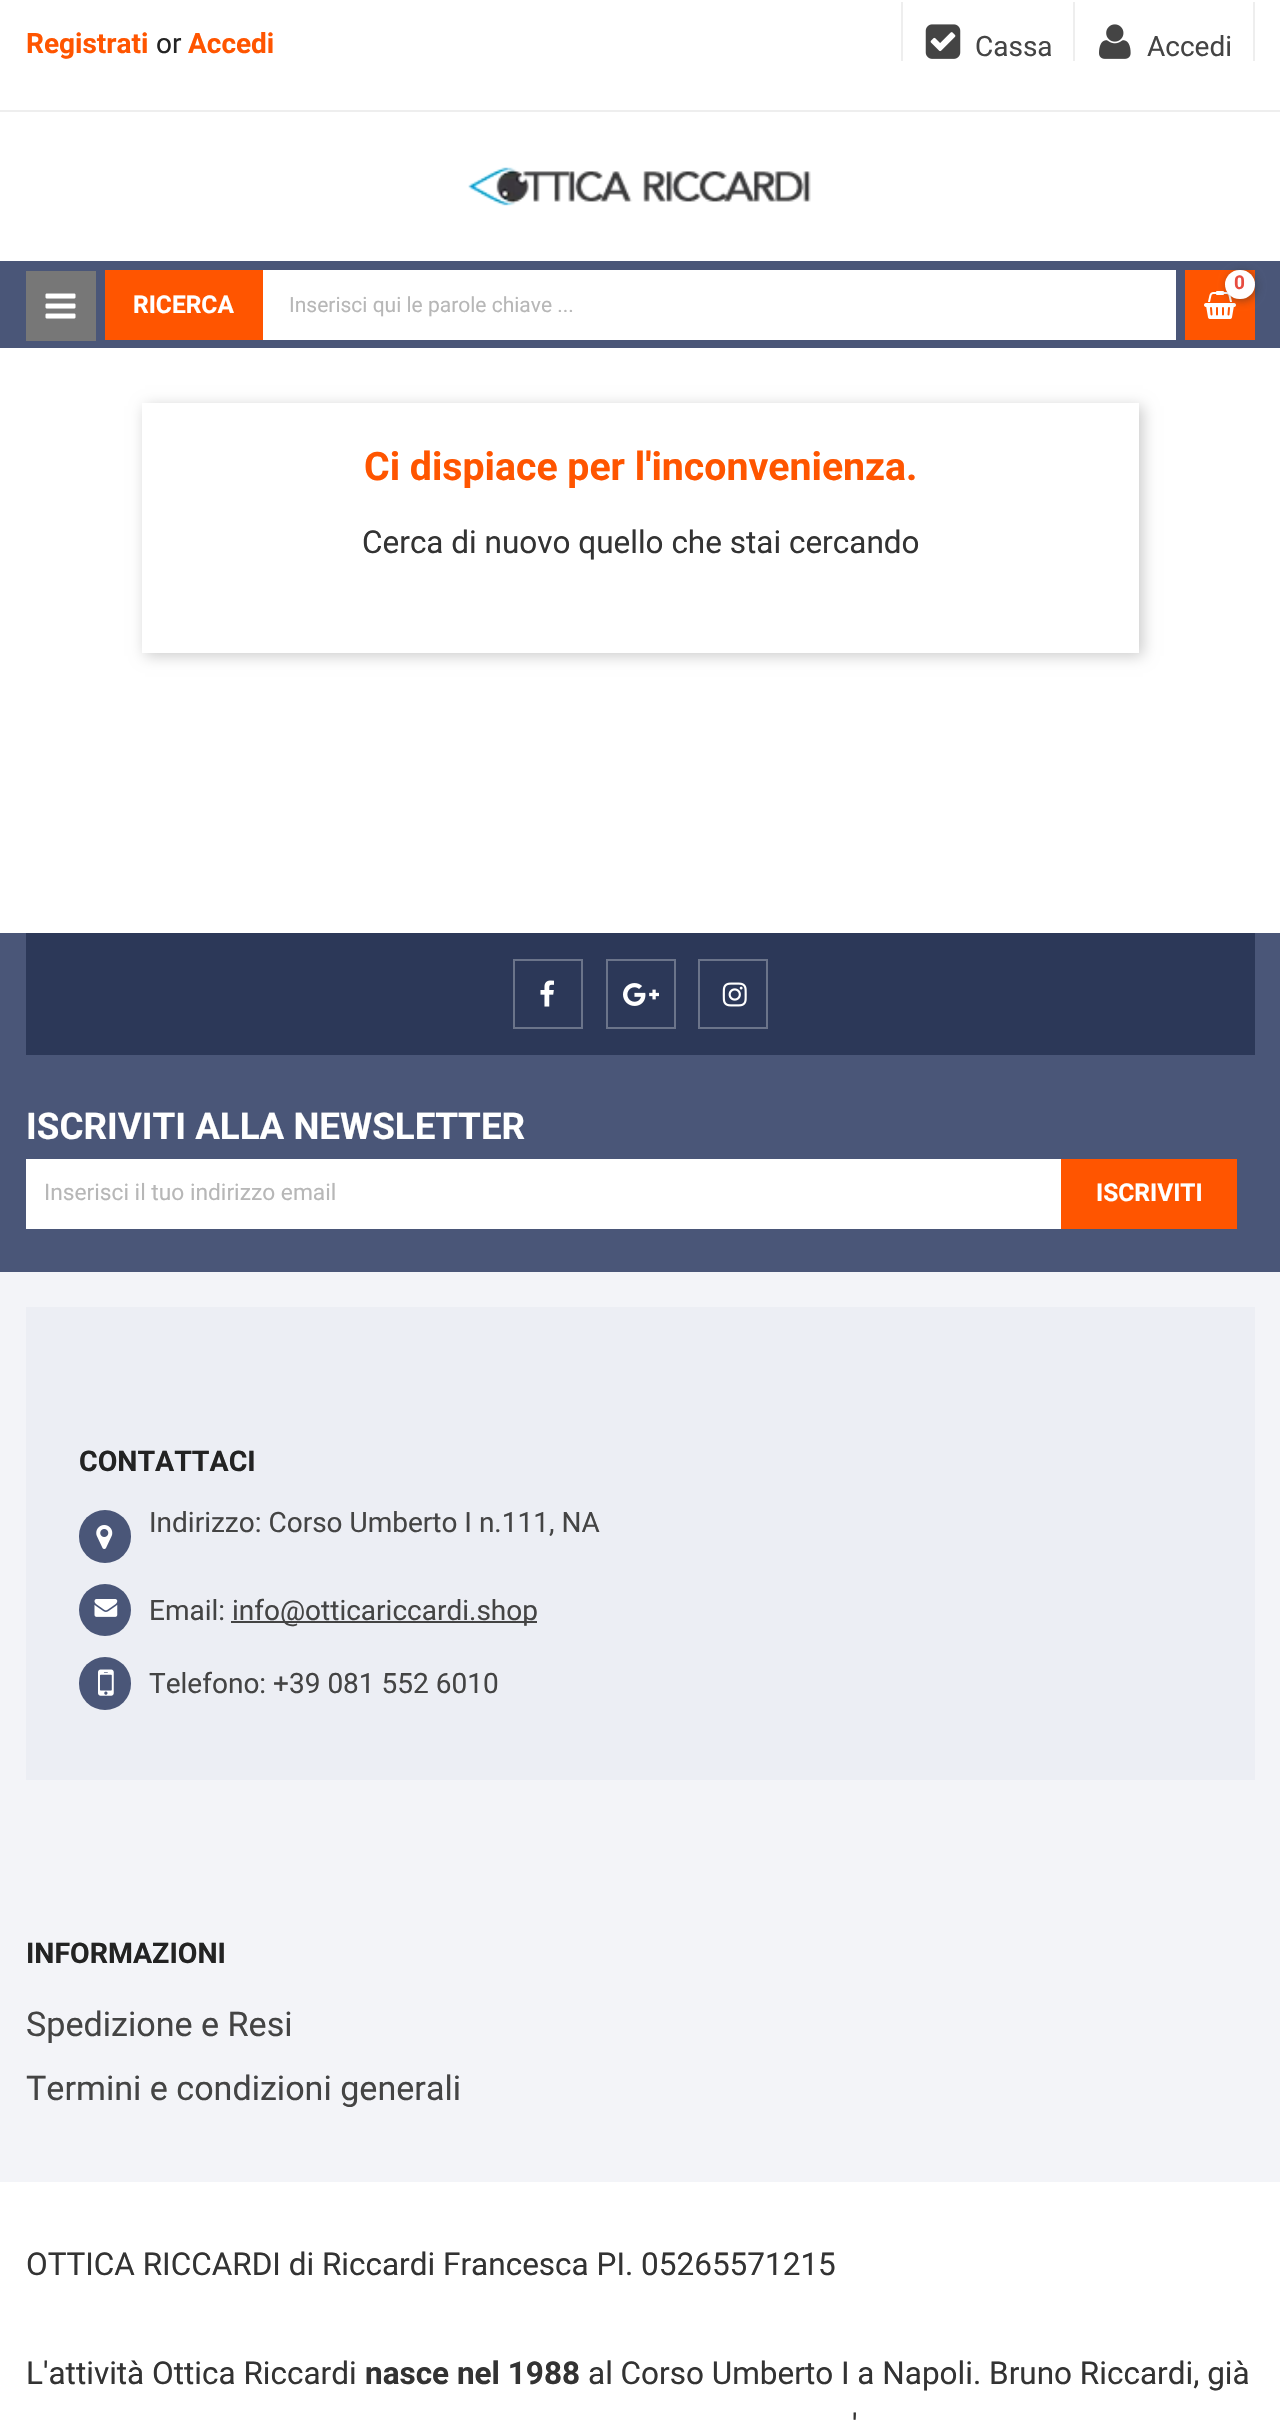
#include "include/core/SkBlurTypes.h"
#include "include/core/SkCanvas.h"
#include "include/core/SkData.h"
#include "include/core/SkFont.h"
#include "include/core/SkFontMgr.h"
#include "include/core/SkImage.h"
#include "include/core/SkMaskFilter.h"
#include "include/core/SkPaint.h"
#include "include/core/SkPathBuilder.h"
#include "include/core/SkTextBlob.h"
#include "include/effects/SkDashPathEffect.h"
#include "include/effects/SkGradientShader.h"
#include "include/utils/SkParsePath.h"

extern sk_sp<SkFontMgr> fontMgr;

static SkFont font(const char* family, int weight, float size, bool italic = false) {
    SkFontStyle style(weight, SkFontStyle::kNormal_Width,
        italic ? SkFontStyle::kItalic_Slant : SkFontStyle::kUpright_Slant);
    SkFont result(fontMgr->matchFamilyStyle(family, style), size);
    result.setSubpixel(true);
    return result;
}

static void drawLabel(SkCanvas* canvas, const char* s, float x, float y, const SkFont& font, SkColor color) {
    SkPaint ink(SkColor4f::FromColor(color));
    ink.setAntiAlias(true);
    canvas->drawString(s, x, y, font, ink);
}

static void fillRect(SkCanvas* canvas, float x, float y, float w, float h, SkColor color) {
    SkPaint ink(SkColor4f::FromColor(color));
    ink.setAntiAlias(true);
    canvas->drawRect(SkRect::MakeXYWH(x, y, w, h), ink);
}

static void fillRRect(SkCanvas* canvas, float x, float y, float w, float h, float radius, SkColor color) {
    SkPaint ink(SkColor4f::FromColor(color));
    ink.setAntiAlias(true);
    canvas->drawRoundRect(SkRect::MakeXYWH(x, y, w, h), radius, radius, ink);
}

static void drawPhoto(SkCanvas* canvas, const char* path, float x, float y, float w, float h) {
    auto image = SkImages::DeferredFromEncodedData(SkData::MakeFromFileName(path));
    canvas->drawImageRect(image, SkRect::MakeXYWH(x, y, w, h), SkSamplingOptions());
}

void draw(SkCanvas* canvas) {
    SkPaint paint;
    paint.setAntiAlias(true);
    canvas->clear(0xFFFFFFFF);
    fillRect(canvas, 0, 110, 1280, 2, 0xFFEEEEEE);
    SkFont font1 = font("Roboto", 700, 28);
    drawLabel(canvas, "Registrati", 26, 53, font1, 0xFFFF5500);
    SkFont font2 = font("Roboto", 400, 28);
    drawLabel(canvas, "or", 156, 53, font2, 0xFF232323);
    drawLabel(canvas, "Accedi", 188, 53, font1, 0xFFFF5500);
    fillRect(canvas, 1073, 2, 2, 59, 0xFFEEEEEE);
    fillRect(canvas, 901, 2, 2, 59, 0xFFEEEEEE);
    drawPhoto(canvas, "assets/img1.png", 925, 24, 36, 35);
    drawLabel(canvas, "Cassa", 975, 56, font2, 0xFF444444);
    fillRect(canvas, 1253, 2, 2, 59, 0xFFEEEEEE);
    drawPhoto(canvas, "assets/img2.png", 1099, 24, 32, 35);
    drawLabel(canvas, "Accedi", 1147, 56, font2, 0xFF444444);
    drawPhoto(canvas, "assets/img3.png", 468, 167, 343, 39);
    fillRect(canvas, 0, 261, 1280, 87, 0xFF4A5678);
    fillRect(canvas, 26, 271, 70, 70, 0xFF777777);
    drawPhoto(canvas, "assets/img4.png", 45, 293, 31, 26);
    fillRect(canvas, 1185, 270, 70, 70, 0xFFFF5500);
    drawPhoto(canvas, "assets/img5.png", 1204, 291, 32, 28);
    paint.setColor(0x80323232);
    paint.setMaskFilter(SkMaskFilter::MakeBlur(kNormal_SkBlurStyle, 4.5f));
    canvas->drawRoundRect(SkRect::MakeXYWH(1227, 271, 30, 30), 15, 15, paint);
    paint.setMaskFilter(nullptr);
    fillRRect(canvas, 1225, 270, 30, 29, 14.5f, 0xFFFFFFFF);
    SkFont font3 = font("Roboto", 700, 19);
    drawLabel(canvas, "0", 1234, 289, font3, 0xFFE74C40);
    fillRect(canvas, 105, 270, 158, 70, 0xFFFF5500);
    SkFont font4 = font("Roboto", 700, 24.5f);
    drawLabel(canvas, "RICERCA", 133, 313, font4, 0xFFFFFFFF);
    fillRect(canvas, 263, 270, 913, 70, 0xFFFFFFFF);
    SkFont font5 = font("Roboto", 400, 21);
    drawLabel(canvas, "Inserisci qui le parole chiave ...", 289, 312, font5, 0xFFB7B7B7);
    paint.setColor(0x33000000);
    paint.setMaskFilter(SkMaskFilter::MakeBlur(kNormal_SkBlurStyle, 7));
    canvas->drawRect(SkRect::MakeXYWH(145, 406, 998, 250), paint);
    paint.setMaskFilter(nullptr);
    fillRect(canvas, 142, 403, 997, 250, 0xFFFFFFFF);
    SkFont font6 = font("Roboto", 700, 39.25f);
    drawLabel(canvas, "Ci dispiace per l'inconvenienza.", 364, 480, font6, 0xFFFF5500);
    SkFont font7 = font("Roboto", 400, 31.5f);
    drawLabel(canvas, "Cerca di nuovo quello che stai cercando", 362, 553, font7, 0xFF333333);
    fillRect(canvas, 0, 933, 1280, 339, 0xFF4A5678);
    fillRect(canvas, 26, 933, 1229, 122, 0xFF2C3858);
    paint.setStroke(true);
    paint.setStrokeWidth(2);
    paint.setColor(0xFF6B748A);
    canvas->drawRect(SkRect::MakeXYWH(514, 960, 68, 68), paint);
    drawPhoto(canvas, "assets/img6.png", 540, 980, 14, 27);
    canvas->drawRect(SkRect::MakeXYWH(607, 960, 68, 68), paint);
    drawPhoto(canvas, "assets/img7.png", 623, 983, 36, 23);
    canvas->drawRect(SkRect::MakeXYWH(699, 960, 68, 68), paint);
    drawPhoto(canvas, "assets/img8.png", 722, 982, 25, 25);
    SkFont font8 = font("Roboto", 700, 36.75f);
    drawLabel(canvas, "ISCRIVITI ALLA NEWSLETTER", 26, 1139, font8, 0xFFFFFFFF);
    fillRect(canvas, 26, 1159, 1035, 70, 0xFFFFFFFF);
    SkFont font9 = font("Roboto", 400, 22.75f);
    drawLabel(canvas, "Inserisci il tuo indirizzo email", 44, 1200, font9, 0xFFB7B7B7);
    fillRect(canvas, 1061, 1159, 176, 70, 0xFFFF5500);
    drawLabel(canvas, "ISCRIVITI", 1096, 1201, font4, 0xFFFFFFFF);
    fillRect(canvas, 0, 1272, 1280, 910, 0xFFF3F4F8);
    fillRect(canvas, 26, 1307, 1229, 473, 0xFFECEEF4);
    SkFont font10 = font("Roboto", 700, 28.5f);
    drawLabel(canvas, "CONTATTACI", 79, 1471, font10, 0xFF232323);
    fillRRect(canvas, 79, 1510, 52, 53, 26, 0xFF4A5678);
    drawPhoto(canvas, "assets/img9.png", 96, 1525, 17, 24);
    drawLabel(canvas, "Indirizzo: Corso Umberto I n.111, NA", 149, 1532, font2, 0xFF444444);
    paint.setStroke(false);
    paint.setColor(0xFF4A5678);
    canvas->drawCircle(105, 1610, 26, paint);
    drawPhoto(canvas, "assets/img10.png", 94, 1599, 24, 18);
    drawLabel(canvas, "Email:", 149, 1620, font2, 0xFF444444);
    fillRect(canvas, 231, 1621, 306, 2, 0xFF444444);
    drawLabel(canvas, "info@otticariccardi.shop", 232, 1620, font2, 0xFF444444);
    fillRRect(canvas, 79, 1657, 52, 53, 26, 0xFF4A5678);
    drawPhoto(canvas, "assets/img11.png", 98, 1669, 16, 27);
    drawLabel(canvas, "Telefono: +39 081 552 6010", 149, 1693, font2, 0xFF444444);
    drawLabel(canvas, "INFORMAZIONI", 26, 1963, font10, 0xFF232323);
    SkFont font11 = font("Roboto", 400, 34.1f);
    drawLabel(canvas, "Spedizione e Resi", 26, 2036, font11, 0xFF444444);
    drawLabel(canvas, "Termini e condizioni generali", 26, 2100, font11, 0xFF444444);
    drawLabel(canvas, "OTTICA RICCARDI di Riccardi Francesca PI. 05265571215", 26, 2275, font7, 0xFF333333);
    drawLabel(canvas, "L'attività Ottica Riccardi", 26, 2384, font7, 0xFF333333);
    SkFont font12 = font("Roboto", 700, 31.5f);
    drawLabel(canvas, "nasce nel 1988", 365, 2384, font12, 0xFF333333);
    drawLabel(canvas, "al Corso Umberto I a Napoli. Bruno Riccardi, già", 588, 2384, font7, 0xFF333333);
    drawLabel(canvas, "'", 852, 2436, font7, 0xFF333333);
}
